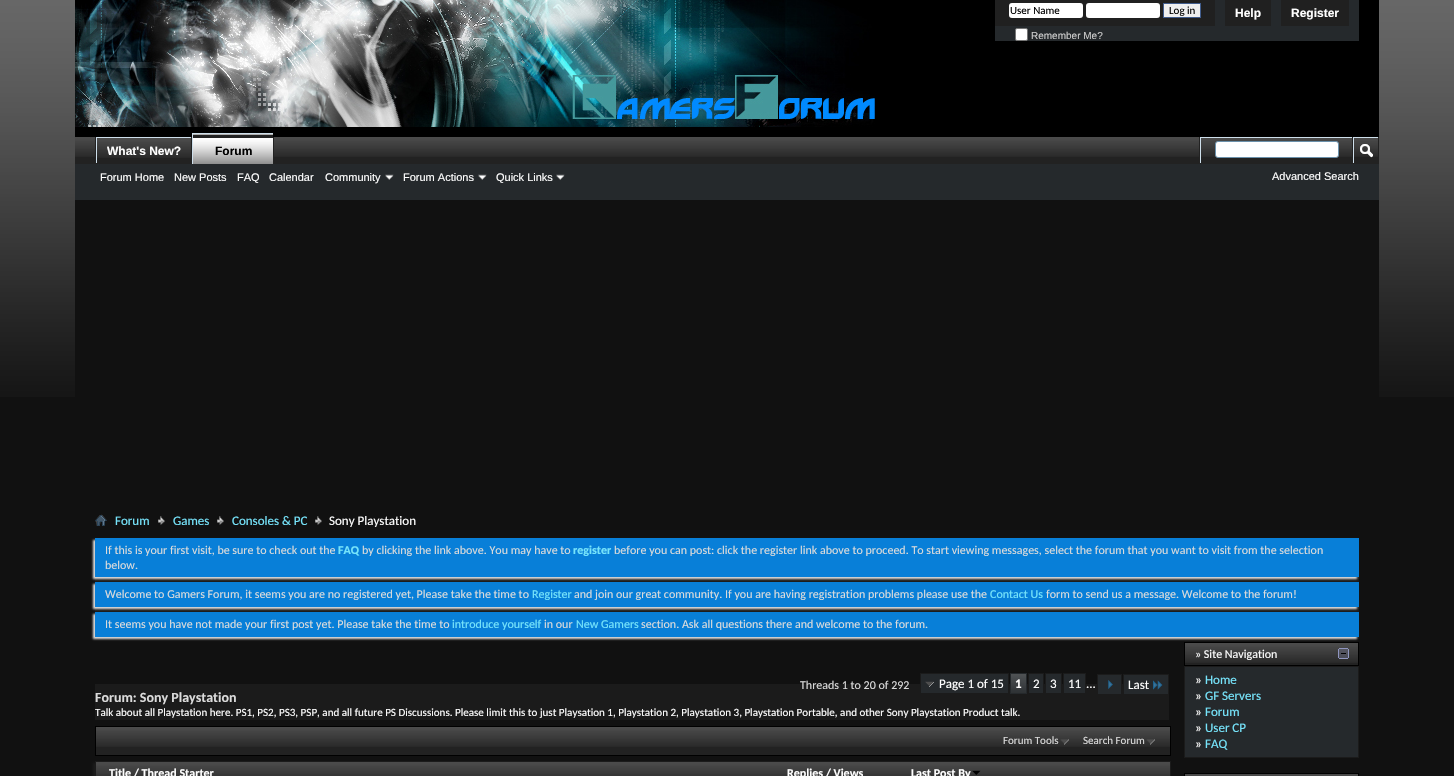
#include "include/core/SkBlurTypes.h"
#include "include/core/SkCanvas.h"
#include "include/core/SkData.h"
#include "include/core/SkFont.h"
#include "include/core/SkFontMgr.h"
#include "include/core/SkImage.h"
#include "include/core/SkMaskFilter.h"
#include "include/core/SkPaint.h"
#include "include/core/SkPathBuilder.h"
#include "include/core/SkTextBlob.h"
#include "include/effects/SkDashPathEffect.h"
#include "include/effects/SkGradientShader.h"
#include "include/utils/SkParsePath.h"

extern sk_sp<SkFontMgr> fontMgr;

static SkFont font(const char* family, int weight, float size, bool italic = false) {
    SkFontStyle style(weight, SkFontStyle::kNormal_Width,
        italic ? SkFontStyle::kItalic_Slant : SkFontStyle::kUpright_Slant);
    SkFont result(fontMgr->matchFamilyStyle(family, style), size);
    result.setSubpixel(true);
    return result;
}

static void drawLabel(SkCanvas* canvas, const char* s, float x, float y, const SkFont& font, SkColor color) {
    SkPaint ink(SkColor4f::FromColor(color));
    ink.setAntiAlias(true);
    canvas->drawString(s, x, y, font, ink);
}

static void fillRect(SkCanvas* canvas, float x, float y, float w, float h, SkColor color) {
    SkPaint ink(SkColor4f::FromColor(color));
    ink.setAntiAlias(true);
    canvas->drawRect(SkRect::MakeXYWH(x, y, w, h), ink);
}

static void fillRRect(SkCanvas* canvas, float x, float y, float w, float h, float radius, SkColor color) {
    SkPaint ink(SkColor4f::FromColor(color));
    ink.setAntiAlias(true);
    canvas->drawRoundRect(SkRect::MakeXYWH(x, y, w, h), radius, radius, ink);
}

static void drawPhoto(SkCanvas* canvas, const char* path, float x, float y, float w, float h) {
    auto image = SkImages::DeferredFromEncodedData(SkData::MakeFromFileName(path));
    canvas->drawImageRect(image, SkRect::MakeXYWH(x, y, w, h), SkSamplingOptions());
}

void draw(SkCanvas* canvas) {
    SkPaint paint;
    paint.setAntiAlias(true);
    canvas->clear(0xFF111111);
    drawPhoto(canvas, "assets/img1.png", 0, 0, 1454, 397);
    fillRect(canvas, 75, 164, 1304, 36, 0xFF25292C);
    fillRect(canvas, 75, 0, 1304, 137, 0xFF000000);
    drawPhoto(canvas, "assets/img2.png", 75, 0, 800, 127);
    fillRect(canvas, 995, 0, 364, 41, 0xFF25292C);
    fillRect(canvas, 995, 0, 220, 26, 0xFF202020);
    fillRRect(canvas, 1009, 3, 74, 15, 3, 0xFFFFFFFF);
    SkFont font1 = font("Carlito", 400, 11);
    drawLabel(canvas, "User Name", 1010, 14, font1, 0xFF000000);
    fillRRect(canvas, 1086, 3, 74, 15, 3, 0xFFFFFFFF);
    paint.setColor(0xFFEFEFEF);
    canvas->drawRect(SkRect::MakeXYWH(1163.5f, 3.5f, 37, 14), paint);
    paint.setStroke(true);
    paint.setStrokeWidth(1);
    paint.setColor(0xFF415D8D);
    canvas->drawRect(SkRect::MakeXYWH(1163.5f, 3.5f, 37, 14), paint);
    drawLabel(canvas, "Log in", 1169, 14, font1, 0xFF000000);
    paint.setStroke(false);
    paint.setColor(0xFFFFFFFF);
    canvas->drawRoundRect(SkRect::MakeXYWH(1015.5f, 28.5f, 12, 12), 1.5f, 1.5f, paint);
    paint.setStroke(true);
    paint.setColor(0xFF767676);
    canvas->drawRoundRect(SkRect::MakeXYWH(1015.5f, 28.5f, 12, 12), 1.5f, 1.5f, paint);
    SkFont font2 = font("Liberation Sans", 400, 10);
    drawLabel(canvas, "Remember Me?", 1031, 39, font2, 0xFFCCCCCC);
    fillRect(canvas, 1225, 0, 46, 26, 0xFF202020);
    SkFont font3 = font("Liberation Sans", 700, 12);
    drawLabel(canvas, "Help", 1235, 17, font3, 0xFFFFFFFF);
    fillRect(canvas, 1281, 0, 68, 26, 0xFF202020);
    drawLabel(canvas, "Register", 1291, 17, font3, 0xFFFFFFFF);
    fillRect(canvas, 75, 137, 1304, 26, 0xFF222222);
    drawPhoto(canvas, "assets/img3.png", 75, 137, 1303, 20);
    fillRect(canvas, 191, 137, 1, 27, 0xFF222222);
    fillRect(canvas, 95, 137, 1, 27, 0xFF222222);
    fillRect(canvas, 97, 138, 94, 19, 0xFF222222);
    drawPhoto(canvas, "assets/img4.png", 97, 138, 94, 20);
    fillRect(canvas, 96, 137, 95, 1, 0xFFCEDFEB);
    fillRect(canvas, 96, 137, 1, 27, 0xFFCEDFEB);
    drawLabel(canvas, "What's New?", 107, 155, font3, 0xFFFFFFFF);
    fillRect(canvas, 273, 137, 1, 26, 0xFF222222);
    fillRect(canvas, 193, 134, 80, 23, 0xFF222222);
    fillRect(canvas, 75, 163, 1304, 1, 0xFF222222);
    drawPhoto(canvas, "assets/img5.png", 193, 134, 80, 30);
    fillRect(canvas, 192, 133, 81, 1, 0xFFCEDFEB);
    fillRect(canvas, 192, 133, 1, 31, 0xFFCEDFEB);
    drawLabel(canvas, "Forum", 215, 155, font3, 0xFF000000);
    SkFont font4 = font("Liberation Sans", 400, 11);
    drawLabel(canvas, "Forum Home", 100, 181, font4, 0xFFFFFFFF);
    drawLabel(canvas, "New Posts", 174, 181, font4, 0xFFFFFFFF);
    drawLabel(canvas, "FAQ", 237, 181, font4, 0xFFFFFFFF);
    drawLabel(canvas, "Calendar", 269, 181, font4, 0xFFFFFFFF);
    drawLabel(canvas, "Community", 325, 181, font4, 0xFFFFFFFF);
    drawPhoto(canvas, "assets/img6.png", 385, 174, 9, 6);
    drawLabel(canvas, "Forum Actions", 403, 181, font4, 0xFFFFFFFF);
    drawPhoto(canvas, "assets/img6.png", 478, 174, 9, 6);
    drawLabel(canvas, "Quick Links", 496, 181, font4, 0xFFFFFFFF);
    drawPhoto(canvas, "assets/img6.png", 556, 174, 9, 6);
    fillRect(canvas, 1199, 137, 1, 26, 0xFF222222);
    fillRect(canvas, 1200, 137, 152, 1, 0xFFCEDFEB);
    fillRect(canvas, 1200, 137, 1, 26, 0xFFCEDFEB);
    paint.setStroke(false);
    paint.setColor(0xFFFFFFFF);
    canvas->drawRoundRect(SkRect::MakeXYWH(1215.5f, 141.5f, 123, 16), 2.5f, 2.5f, paint);
    paint.setStroke(true);
    paint.setColor(0xFF6B91AB);
    canvas->drawRoundRect(SkRect::MakeXYWH(1215.5f, 141.5f, 123, 16), 2.5f, 2.5f, paint);
    fillRect(canvas, 1352, 137, 1, 26, 0xFF222222);
    fillRect(canvas, 1353, 137, 25, 1, 0xFFCEDFEB);
    fillRect(canvas, 1353, 137, 1, 26, 0xFFCEDFEB);
    drawPhoto(canvas, "assets/img7.png", 1360, 144, 13, 14);
    drawLabel(canvas, "Advanced Search", 1272, 180, font4, 0xFFFFFFFF);
    fillRect(canvas, 75, 200, 1304, 197, 0xFF111111);
    drawPhoto(canvas, "assets/img8.png", 95, 514, 12, 12);
    drawPhoto(canvas, "assets/img9.png", 158, 516, 7, 9);
    SkFont font5 = font("Carlito", 400, 13);
    drawLabel(canvas, "Forum", 115, 525, font5, 0xFF76E4FB);
    drawPhoto(canvas, "assets/img9.png", 217, 516, 7, 9);
    drawLabel(canvas, "Games", 173, 525, font5, 0xFF76E4FB);
    drawPhoto(canvas, "assets/img9.png", 315, 516, 7, 9);
    drawLabel(canvas, "Consoles & PC", 232, 525, font5, 0xFF76E4FB);
    drawLabel(canvas, "Sony Playstation", 329, 525, font5, 0xFFFFFFFF);
    fillRect(canvas, 95, 577, 1264, 35, 0xFF1B1B1B);
    paint.setStroke(false);
    paint.setColor(0xFFDBDBDB);
    paint.setMaskFilter(SkMaskFilter::MakeBlur(kNormal_SkBlurStyle, 1));
    canvas->drawRect(SkRect::MakeXYWH(93, 540, 1264, 39), paint);
    paint.setMaskFilter(nullptr);
    fillRect(canvas, 95, 538, 1264, 39, 0xFF087FD8);
    SkFont font6 = font("Carlito", 400, 12);
    drawLabel(canvas, "If this is your first visit, be sure to check out the", 105, 554, font6, 0xFFDBDBDB);
    SkFont font7 = font("Carlito", 700, 12);
    drawLabel(canvas, "FAQ", 338, 554, font7, 0xFF76E4FB);
    drawLabel(canvas, "by clicking the link above. You may have to", 362, 554, font6, 0xFFDBDBDB);
    drawLabel(canvas, "register", 573, 554, font7, 0xFF76E4FB);
    drawLabel(canvas, "before you can post: click the register link above to proceed. To start viewing messages, select the forum that you want to visit from the selection", 614, 554, font6, 0xFFDBDBDB);
    drawLabel(canvas, "below.", 105, 569, font6, 0xFFDBDBDB);
    paint.setMaskFilter(SkMaskFilter::MakeBlur(kNormal_SkBlurStyle, 1));
    canvas->drawRect(SkRect::MakeXYWH(93, 584, 1264, 25), paint);
    paint.setMaskFilter(nullptr);
    fillRect(canvas, 95, 582, 1264, 25, 0xFF087FD8);
    drawLabel(canvas, "Welcome to Gamers Forum, it seems you are no registered yet, Please take the time to", 105, 598, font6, 0xFFDBDBDB);
    drawLabel(canvas, "Register", 532, 598, font6, 0xFF76E4FB);
    drawLabel(canvas, "and join our great community. If you are having registration problems please use the", 574, 598, font6, 0xFFDBDBDB);
    drawLabel(canvas, "Contact Us", 990, 598, font6, 0xFF76E4FB);
    drawLabel(canvas, "form to send us a message. Welcome to the forum!", 1046, 598, font6, 0xFFDBDBDB);
    paint.setMaskFilter(SkMaskFilter::MakeBlur(kNormal_SkBlurStyle, 1));
    canvas->drawRect(SkRect::MakeXYWH(93, 614, 1264, 25), paint);
    paint.setMaskFilter(nullptr);
    fillRect(canvas, 95, 612, 1264, 25, 0xFF087FD8);
    drawLabel(canvas, "It seems you have not made your first post yet. Please take the time to", 105, 628, font6, 0xFFDBDBDB);
    drawLabel(canvas, "introduce yourself", 452, 628, font6, 0xFF76E4FB);
    drawLabel(canvas, "in our", 544, 628, font6, 0xFFDBDBDB);
    drawLabel(canvas, "New Gamers", 576, 628, font6, 0xFF76E4FB);
    drawLabel(canvas, "section. Ask all questions there and welcome to the forum.", 641, 628, font6, 0xFFDBDBDB);
    fillRect(canvas, 95, 684, 1074, 36, 0xFF1B1B1B);
    drawLabel(canvas, "Threads 1 to 20 of 292", 800, 689, font6, 0xFFDBDBDB);
    fillRect(canvas, 921, 674, 87, 19, 0xFF25292C);
    drawPhoto(canvas, "assets/img10.png", 925, 681, 9, 6);
    paint.setStroke(true);
    paint.setColor(0xFF1B1B1B);
    canvas->drawRect(SkRect::MakeXYWH(920.5f, 673.5f, 88, 20), paint);
    drawLabel(canvas, "Page 1 of 15", 939, 688, font5, 0xFFFFFFFF);
    fillRect(canvas, 1011, 674, 15, 19, 0xFF25292C);
    drawPhoto(canvas, "assets/img11.png", 1011, 674, 15, 19);
    paint.setColor(0xFF25292C);
    canvas->drawRect(SkRect::MakeXYWH(1010.5f, 673.5f, 16, 20), paint);
    SkFont font8 = font("Carlito", 700, 13);
    drawLabel(canvas, "1", 1015, 688, font8, 0xFFFFFFFF);
    paint.setStroke(false);
    canvas->drawRect(SkRect::MakeXYWH(1028.5f, 673.5f, 15, 20), paint);
    paint.setStroke(true);
    paint.setColor(0xFF1B1B1B);
    canvas->drawRect(SkRect::MakeXYWH(1028.5f, 673.5f, 15, 20), paint);
    drawLabel(canvas, "2", 1033, 688, font5, 0xFFFFFFFF);
    paint.setStroke(false);
    paint.setColor(0xFF25292C);
    canvas->drawRect(SkRect::MakeXYWH(1045.5f, 673.5f, 16, 20), paint);
    paint.setStroke(true);
    paint.setColor(0xFF1B1B1B);
    canvas->drawRect(SkRect::MakeXYWH(1045.5f, 673.5f, 16, 20), paint);
    drawLabel(canvas, "3", 1050, 688, font5, 0xFFFFFFFF);
    paint.setStroke(false);
    paint.setColor(0xFF25292C);
    canvas->drawRect(SkRect::MakeXYWH(1063.5f, 673.5f, 22, 20), paint);
    paint.setStroke(true);
    paint.setColor(0xFF1B1B1B);
    canvas->drawRect(SkRect::MakeXYWH(1063.5f, 673.5f, 22, 20), paint);
    drawLabel(canvas, "11", 1068, 688, font5, 0xFFFFFFFF);
    drawLabel(canvas, "...", 1086, 688, font5, 0xFFFFFFFF);
    paint.setStroke(false);
    paint.setColor(0xFF25292C);
    canvas->drawRect(SkRect::MakeXYWH(1097.5f, 674.5f, 24, 20), paint);
    paint.setStroke(true);
    paint.setColor(0xFF1B1B1B);
    canvas->drawRect(SkRect::MakeXYWH(1097.5f, 674.5f, 24, 20), paint);
    drawPhoto(canvas, "assets/img12.png", 1108, 680, 5, 9);
    fillRect(canvas, 1124, 675, 44, 19, 0xFF25292C);
    drawLabel(canvas, "Last", 1128, 689, font5, 0xFFFFFFFF);
    fillRect(canvas, 1123, 674, 46, 1, 0xFF1B1B1B);
    fillRect(canvas, 1123, 674, 1, 10, 0xFF1B1B1B);
    fillRect(canvas, 1168, 674, 1, 10, 0xFF1B1B1B);
    drawPhoto(canvas, "assets/img13.png", 1153, 680, 10, 10);
    SkFont font9 = font("Carlito", 700, 14);
    drawLabel(canvas, "Forum: Sony Playstation", 95, 702, font9, 0xFFDBDBDB);
    SkFont font10 = font("Carlito", 400, 11.05f);
    drawLabel(canvas, "Talk about all Playstation here. PS1, PS2, PS3, PSP, and all future PS Discussions. Please limit this to just Playsation 1, Playstation 2, Playstation 3, Playstation Portable, and other Sony Playstation Product talk.", 95, 716, font10, 0xFFFFFFFF);
    fillRect(canvas, 96, 727, 1074, 28, 0xFF222222);
    drawPhoto(canvas, "assets/img14.png", 96, 727, 1074, 20);
    paint.setColor(0xFF000000);
    canvas->drawRect(SkRect::MakeXYWH(95.5f, 726.5f, 1075, 29), paint);
    drawPhoto(canvas, "assets/img15.png", 1060, 739, 9, 6);
    drawLabel(canvas, "Forum Tools", 1003, 744, font1, 0xFFDBDBDB);
    drawPhoto(canvas, "assets/img15.png", 1146, 739, 9, 6);
    drawLabel(canvas, "Search Forum", 1083, 744, font1, 0xFFDBDBDB);
    paint.setStroke(false);
    paint.setColor(0xFF1B1B1B);
    paint.setMaskFilter(SkMaskFilter::MakeBlur(kNormal_SkBlurStyle, 1));
    canvas->drawRect(SkRect::MakeXYWH(93, 763, 1076, 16), paint);
    paint.setMaskFilter(nullptr);
    fillRect(canvas, 96, 762, 1074, 14, 0xFF222222);
    drawPhoto(canvas, "assets/img16.png", 96, 762, 1074, 14);
    paint.setStroke(true);
    canvas->drawRect(SkRect::MakeXYWH(95.5f, 761.5f, 1075, 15), paint);
    drawLabel(canvas, "Title / Thread Starter", 109, 777, font7, 0xFFFFFFFF);
    drawLabel(canvas, "Replies / Views", 787, 777, font7, 0xFFFFFFFF);
    drawLabel(canvas, "Last Post By", 911, 777, font7, 0xFFFFFFFF);
    drawPhoto(canvas, "assets/img17.png", 972, 770, 9, 5);
    fillRect(canvas, 1185, 643, 173, 22, 0xFF222222);
    drawPhoto(canvas, "assets/img18.png", 1185, 643, 173, 20);
    paint.setColor(0xFF000000);
    canvas->drawRect(SkRect::MakeXYWH(1184.5f, 642.5f, 174, 23), paint);
    drawLabel(canvas, "» Site Navigation", 1195, 658, font6, 0xFFFFFFFF);
    drawPhoto(canvas, "assets/img19.png", 1338, 648, 11, 11);
    fillRect(canvas, 1184, 666, 175, 92, 0xFF1B1B1B);
    fillRect(canvas, 1185, 667, 173, 90, 0xFF25292C);
    drawLabel(canvas, "»", 1195, 684, font5, 0xFFFFFFFF);
    drawLabel(canvas, "Home", 1205, 684, font5, 0xFF76E4FB);
    drawLabel(canvas, "»", 1195, 700, font5, 0xFFFFFFFF);
    drawLabel(canvas, "GF Servers", 1205, 700, font5, 0xFF76E4FB);
    drawLabel(canvas, "»", 1195, 716, font5, 0xFFFFFFFF);
    drawLabel(canvas, "Forum", 1205, 716, font5, 0xFF76E4FB);
    drawLabel(canvas, "»", 1195, 732, font5, 0xFFFFFFFF);
    drawLabel(canvas, "User CP", 1205, 732, font5, 0xFF76E4FB);
    drawLabel(canvas, "»", 1195, 748, font5, 0xFFFFFFFF);
    drawLabel(canvas, "FAQ", 1205, 748, font5, 0xFF76E4FB);
    paint.setStroke(false);
    paint.setColor(0xFF4A4A4A);
    canvas->drawRect(SkRect::MakeXYWH(1184.5f, 773.5f, 174, 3), paint);
    paint.setStroke(true);
    paint.setColor(0xFF000000);
    canvas->drawRect(SkRect::MakeXYWH(1184.5f, 773.5f, 174, 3), paint);
}
